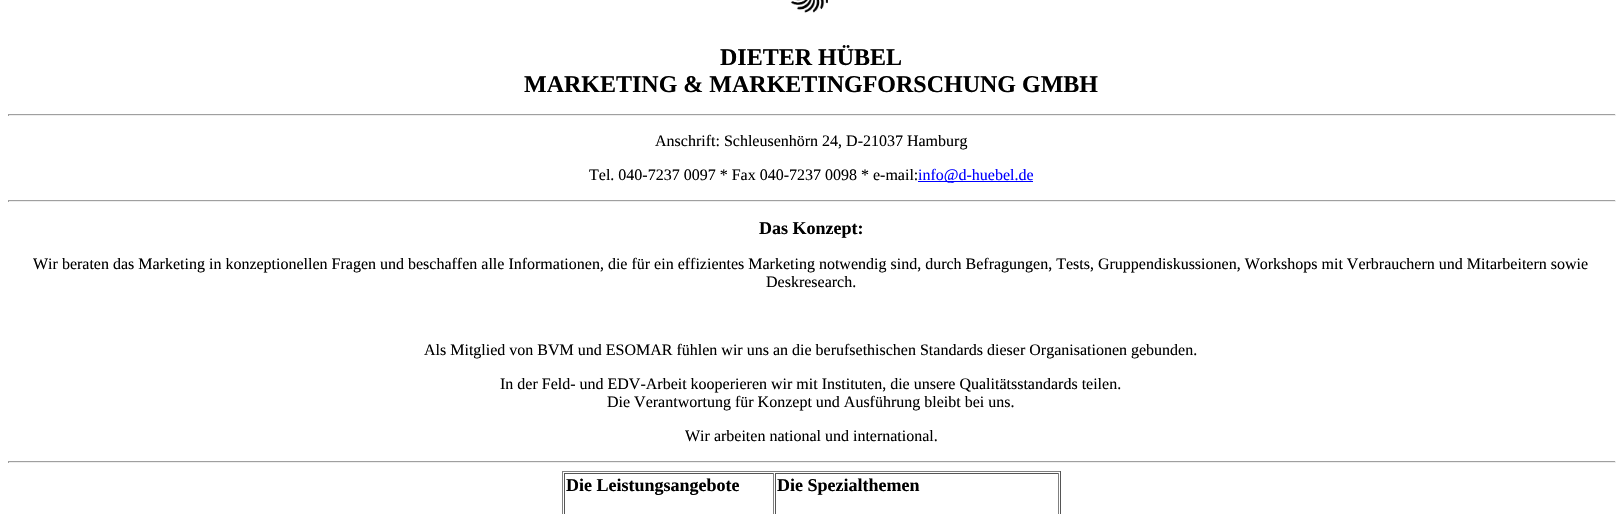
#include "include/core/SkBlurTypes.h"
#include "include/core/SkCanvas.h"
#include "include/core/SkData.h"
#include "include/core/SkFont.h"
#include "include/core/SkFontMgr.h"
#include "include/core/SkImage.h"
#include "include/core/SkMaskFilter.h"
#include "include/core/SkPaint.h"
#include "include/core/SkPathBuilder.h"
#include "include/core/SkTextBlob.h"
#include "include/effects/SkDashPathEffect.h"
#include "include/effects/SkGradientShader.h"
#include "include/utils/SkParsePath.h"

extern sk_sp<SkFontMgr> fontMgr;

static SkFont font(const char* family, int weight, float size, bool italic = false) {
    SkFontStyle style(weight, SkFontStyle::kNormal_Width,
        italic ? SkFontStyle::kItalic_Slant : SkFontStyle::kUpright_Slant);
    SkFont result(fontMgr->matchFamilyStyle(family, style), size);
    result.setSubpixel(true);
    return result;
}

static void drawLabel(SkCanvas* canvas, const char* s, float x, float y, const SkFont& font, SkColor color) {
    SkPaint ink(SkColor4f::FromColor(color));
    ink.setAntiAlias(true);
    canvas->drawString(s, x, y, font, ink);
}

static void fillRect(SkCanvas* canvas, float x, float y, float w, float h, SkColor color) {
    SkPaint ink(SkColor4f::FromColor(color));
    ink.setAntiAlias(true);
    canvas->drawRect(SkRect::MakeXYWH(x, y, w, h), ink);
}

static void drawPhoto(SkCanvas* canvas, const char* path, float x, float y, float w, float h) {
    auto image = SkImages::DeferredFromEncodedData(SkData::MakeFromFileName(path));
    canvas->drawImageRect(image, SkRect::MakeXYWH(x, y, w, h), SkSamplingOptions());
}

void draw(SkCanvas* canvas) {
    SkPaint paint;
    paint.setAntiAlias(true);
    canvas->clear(0xFFFFFFFF);
    drawPhoto(canvas, "assets/img1.png", 790, 0, 38, 13);
    SkFont font1 = font("Liberation Serif", 700, 24);
    drawLabel(canvas, "DIETER HÜBEL", 720, 65, font1, 0xFF000000);
    drawLabel(canvas, "MARKETING & MARKETINGFORSCHUNG GMBH", 524, 92, font1, 0xFF000000);
    fillRect(canvas, 8, 114, 1608, 1, 0xFF9F9F9F);
    fillRect(canvas, 1615, 114, 1, 2, 0xFFEEEEEE);
    fillRect(canvas, 8, 115, 1608, 1, 0xFFEEEEEE);
    fillRect(canvas, 8, 114, 1, 2, 0xFF9F9F9F);
    SkFont font2 = font("Liberation Serif", 400, 16);
    drawLabel(canvas, "Anschrift: Schleusenhörn 24, D-21037 Hamburg", 655, 146, font2, 0xFF000000);
    drawLabel(canvas, "Tel. 040-7237 0097 * Fax 040-7237 0098 * e-mail:", 589, 180, font2, 0xFF000000);
    fillRect(canvas, 918, 181, 115, 1, 0xFF0000FF);
    drawLabel(canvas, "info@d-huebel.de", 918, 180, font2, 0xFF0000FF);
    fillRect(canvas, 8, 200, 1608, 1, 0xFF9F9F9F);
    fillRect(canvas, 1615, 200, 1, 2, 0xFFEEEEEE);
    fillRect(canvas, 8, 201, 1608, 1, 0xFFEEEEEE);
    fillRect(canvas, 8, 200, 1, 2, 0xFF9F9F9F);
    SkFont font3 = font("Liberation Serif", 700, 18);
    drawLabel(canvas, "Das Konzept:", 759, 234, font3, 0xFF000000);
    drawLabel(canvas, "Wir beraten das Marketing in konzeptionellen Fragen und beschaffen alle Informationen, die für ein effizientes Marketing notwendig sind, durch Befragungen, Tests, Gruppendiskussionen, Workshops mit Verbrauchern und Mitarbeitern sowie", 33, 269, font2, 0xFF000000);
    drawLabel(canvas, "Deskresearch.", 766, 287, font2, 0xFF000000);
    drawLabel(canvas, "Als Mitglied von BVM und ESOMAR fühlen wir uns an die berufsethischen Standards dieser Organisationen gebunden.", 424, 355, font2, 0xFF000000);
    drawLabel(canvas, "In der Feld- und EDV-Arbeit kooperieren wir mit Instituten, die unsere Qualitätsstandards teilen.", 500, 389, font2, 0xFF000000);
    drawLabel(canvas, "Die Verantwortung für Konzept und Ausführung bleibt bei uns.", 607, 407, font2, 0xFF000000);
    drawLabel(canvas, "Wir arbeiten national und international.", 685, 441, font2, 0xFF000000);
    fillRect(canvas, 8, 461, 1608, 1, 0xFF9F9F9F);
    fillRect(canvas, 1615, 461, 1, 2, 0xFFEEEEEE);
    fillRect(canvas, 8, 462, 1608, 1, 0xFFEEEEEE);
    fillRect(canvas, 8, 461, 1, 2, 0xFF9F9F9F);
    fillRect(canvas, 562, 471, 499, 1, 0xFF808080);
    fillRect(canvas, 1060, 471, 1, 43, 0xFF555555);
    fillRect(canvas, 562, 471, 1, 43, 0xFF808080);
    fillRect(canvas, 564, 473, 210, 1, 0xFF555555);
    fillRect(canvas, 773, 473, 1, 41, 0xFF808080);
    fillRect(canvas, 564, 473, 1, 41, 0xFF555555);
    drawLabel(canvas, "Die Leistungsangebote", 566, 491, font3, 0xFF000000);
    fillRect(canvas, 775, 473, 284, 1, 0xFF555555);
    fillRect(canvas, 1058, 473, 1, 41, 0xFF808080);
    fillRect(canvas, 775, 473, 1, 41, 0xFF555555);
    drawLabel(canvas, "Die Spezialthemen", 777, 491, font3, 0xFF000000);
}
